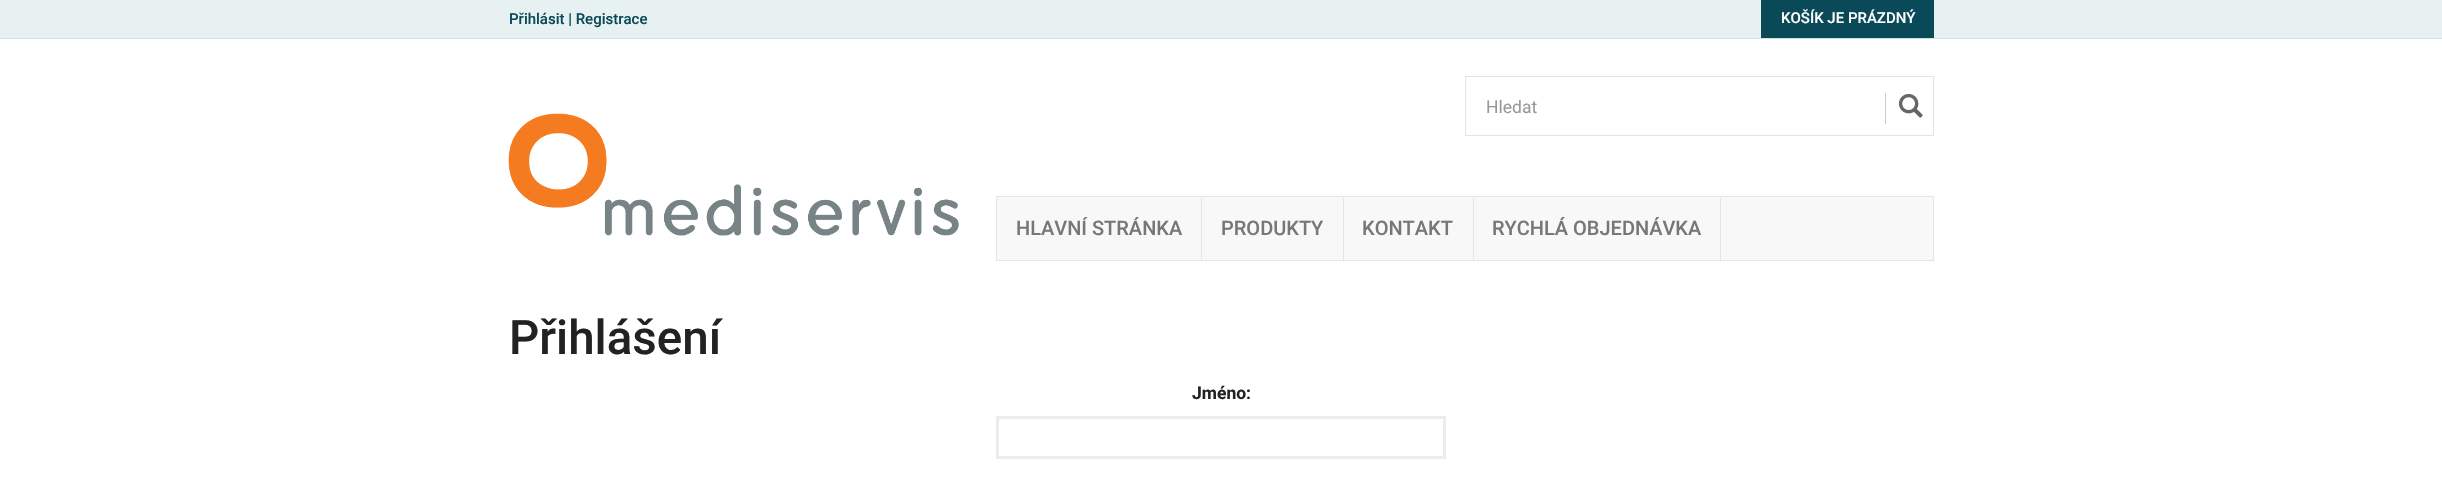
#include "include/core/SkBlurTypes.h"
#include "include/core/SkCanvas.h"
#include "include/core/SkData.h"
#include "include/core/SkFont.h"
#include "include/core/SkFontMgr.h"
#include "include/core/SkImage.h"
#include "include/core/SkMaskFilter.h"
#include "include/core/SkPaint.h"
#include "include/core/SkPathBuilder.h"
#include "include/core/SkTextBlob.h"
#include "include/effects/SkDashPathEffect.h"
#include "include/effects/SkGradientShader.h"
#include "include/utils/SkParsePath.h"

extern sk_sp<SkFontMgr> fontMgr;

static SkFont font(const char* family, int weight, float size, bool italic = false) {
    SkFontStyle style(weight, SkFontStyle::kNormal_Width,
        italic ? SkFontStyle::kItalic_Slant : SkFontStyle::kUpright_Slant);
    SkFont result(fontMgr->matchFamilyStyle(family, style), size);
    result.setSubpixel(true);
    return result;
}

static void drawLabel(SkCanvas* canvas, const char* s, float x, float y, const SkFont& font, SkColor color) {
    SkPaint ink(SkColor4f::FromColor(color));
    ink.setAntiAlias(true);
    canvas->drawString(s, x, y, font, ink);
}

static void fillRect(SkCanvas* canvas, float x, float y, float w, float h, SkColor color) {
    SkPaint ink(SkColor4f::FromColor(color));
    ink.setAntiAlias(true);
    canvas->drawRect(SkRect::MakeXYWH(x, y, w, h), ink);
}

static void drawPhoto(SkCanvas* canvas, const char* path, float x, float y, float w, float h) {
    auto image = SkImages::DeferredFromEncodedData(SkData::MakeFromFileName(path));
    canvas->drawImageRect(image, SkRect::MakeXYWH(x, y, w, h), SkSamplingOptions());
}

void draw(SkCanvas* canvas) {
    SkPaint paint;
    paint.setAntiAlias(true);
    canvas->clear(0xFFFFFFFF);
    fillRect(canvas, 0, 0, 2442, 38, 0xFFE8F1F2);
    fillRect(canvas, 0, 38, 2442, 1, 0xFFD5E2E4);
    SkFont font1 = font("Roboto", 500, 15);
    drawLabel(canvas, "Přihlásit | Registrace", 509, 24, font1, 0xFF0A4958);
    fillRect(canvas, 1761, 0, 173, 38, 0xFF0A4958);
    drawLabel(canvas, "KOŠÍK JE PRÁZDNÝ", 1781, 23, font1, 0xFFFFFFFF);
    drawPhoto(canvas, "assets/img1.png", 508, 113, 451, 123);
    paint.setStroke(true);
    paint.setStrokeWidth(1);
    paint.setColor(0xFFE4E4E4);
    canvas->drawRect(SkRect::MakeXYWH(1465.5f, 76.5f, 468, 59), paint);
    SkFont font2 = font("Roboto", 400, 17.5f);
    drawLabel(canvas, "Hledat", 1486, 113, font2, 0xFF999999);
    fillRect(canvas, 1885, 93, 1, 31, 0xFFCCCCCC);
    drawPhoto(canvas, "assets/img2.png", 1898, 93, 25, 25);
    paint.setStroke(false);
    paint.setColor(0xFFF8F8F8);
    canvas->drawRect(SkRect::MakeXYWH(996.5f, 196.5f, 937, 64), paint);
    paint.setStroke(true);
    paint.setColor(0xFFE5E5E5);
    canvas->drawRect(SkRect::MakeXYWH(996.5f, 196.5f, 937, 64), paint);
    fillRect(canvas, 1201, 198, 1, 62, 0xFFE5E5E5);
    SkFont font3 = font("Roboto", 500, 20);
    drawLabel(canvas, "HLAVNÍ STRÁNKA", 1016, 235, font3, 0xFF777777);
    fillRect(canvas, 1343, 198, 1, 62, 0xFFE5E5E5);
    drawLabel(canvas, "PRODUKTY", 1221, 235, font3, 0xFF777777);
    fillRect(canvas, 1473, 198, 1, 62, 0xFFE5E5E5);
    drawLabel(canvas, "KONTAKT", 1362, 235, font3, 0xFF777777);
    fillRect(canvas, 1720, 198, 1, 62, 0xFFE5E5E5);
    drawLabel(canvas, "RYCHLÁ OBJEDNÁVKA", 1492, 235, font3, 0xFF777777);
    SkFont font4 = font("Roboto", 500, 47.5f);
    drawLabel(canvas, "Přihlášení", 509, 354, font4, 0xFF222222);
    SkFont font5 = font("Roboto", 700, 17.5f);
    drawLabel(canvas, "Jméno:", 1192, 399, font5, 0xFF222222);
    paint.setStrokeWidth(3);
    paint.setColor(0xFFECECEC);
    canvas->drawRect(SkRect::MakeXYWH(997.5f, 417.5f, 447, 40), paint);
}
